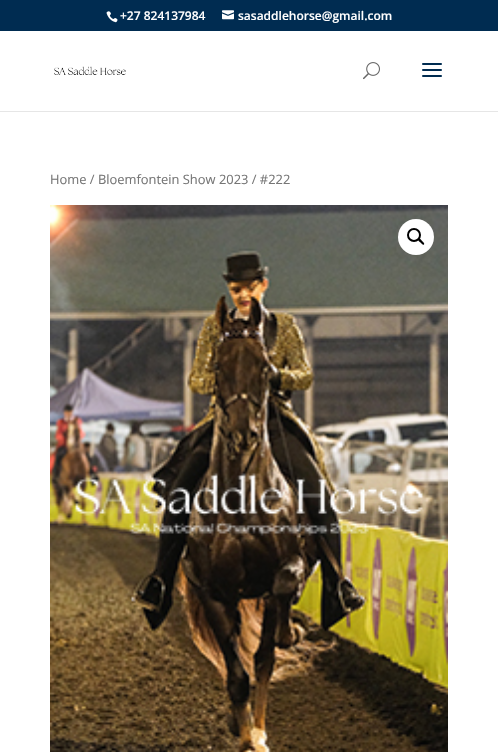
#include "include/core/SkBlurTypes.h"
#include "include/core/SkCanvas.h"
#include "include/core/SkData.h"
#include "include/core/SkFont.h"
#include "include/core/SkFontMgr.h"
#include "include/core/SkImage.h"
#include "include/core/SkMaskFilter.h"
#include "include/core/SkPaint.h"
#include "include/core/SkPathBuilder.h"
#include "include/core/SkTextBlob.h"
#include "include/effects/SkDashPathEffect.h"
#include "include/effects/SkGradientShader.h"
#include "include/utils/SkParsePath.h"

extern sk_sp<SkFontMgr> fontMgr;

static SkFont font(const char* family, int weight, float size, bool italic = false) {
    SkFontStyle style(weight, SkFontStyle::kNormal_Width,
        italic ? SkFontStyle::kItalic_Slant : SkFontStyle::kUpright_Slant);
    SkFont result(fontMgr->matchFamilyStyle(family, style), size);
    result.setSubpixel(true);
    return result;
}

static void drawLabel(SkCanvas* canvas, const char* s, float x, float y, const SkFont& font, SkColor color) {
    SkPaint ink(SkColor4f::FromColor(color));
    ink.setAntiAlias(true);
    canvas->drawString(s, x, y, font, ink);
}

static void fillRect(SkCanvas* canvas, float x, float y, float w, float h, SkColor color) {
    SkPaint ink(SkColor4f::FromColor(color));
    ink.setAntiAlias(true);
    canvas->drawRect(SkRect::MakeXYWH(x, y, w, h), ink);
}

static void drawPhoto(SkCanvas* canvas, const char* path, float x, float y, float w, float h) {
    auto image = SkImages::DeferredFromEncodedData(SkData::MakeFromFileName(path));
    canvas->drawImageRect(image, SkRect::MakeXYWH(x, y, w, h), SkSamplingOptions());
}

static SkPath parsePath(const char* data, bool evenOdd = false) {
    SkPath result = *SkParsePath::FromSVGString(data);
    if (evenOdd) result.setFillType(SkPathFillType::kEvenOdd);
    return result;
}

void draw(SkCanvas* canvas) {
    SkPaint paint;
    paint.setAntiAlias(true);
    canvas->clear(0xFF002C51);
    drawPhoto(canvas, "assets/img1.png", 106, 11, 12, 12);
    SkFont font1 = font("Open Sans", 600, 12);
    drawLabel(canvas, "+27 824137984", 120, 20, font1, 0xFFFFFFFF);
    drawPhoto(canvas, "assets/img2.png", 222, 10, 12, 10);
    drawLabel(canvas, "sasaddlehorse@gmail.com", 238, 20, font1, 0xFFFFFFFF);
    fillRect(canvas, 0, 111, 498, 1, 0xFFE6E6E6);
    fillRect(canvas, 0, 31, 498, 80, 0xFFFFFFFF);
    drawPhoto(canvas, "assets/img3.png", 54, 66, 72, 9);
    drawPhoto(canvas, "assets/img4.png", 363, 62, 17, 18);
    drawPhoto(canvas, "assets/img5.png", 422, 63, 20, 14);
    fillRect(canvas, 0, 112, 498, 640, 0xFFFFFFFF);
    SkFont font2 = font("Open Sans", 400, 12.9f);
    drawLabel(canvas, "Home / Bloemfontein Show 2023 / #222", 50, 184, font2, 0xFF767676);
    drawPhoto(canvas, "assets/img6.png", 50, 205, 398, 547);
    paint.setColor(0xFFFFFFFF);
    canvas->drawCircle(416, 237, 18, paint);
    paint.setStroke(true);
    paint.setStrokeWidth(2);
    paint.setColor(0xFF000000);
    canvas->drawCircle(414, 235, 6, paint);
    paint.setStroke(false);
    canvas->drawPath(parsePath("M418.5 239C419.5 237.5 421.5 240.5 422 241C422.5 241.5 425 243.5 424 244.5C423 245.5 421 243 420.5 242.5C420 242 417 240 418.5 239Z"), paint);
}
